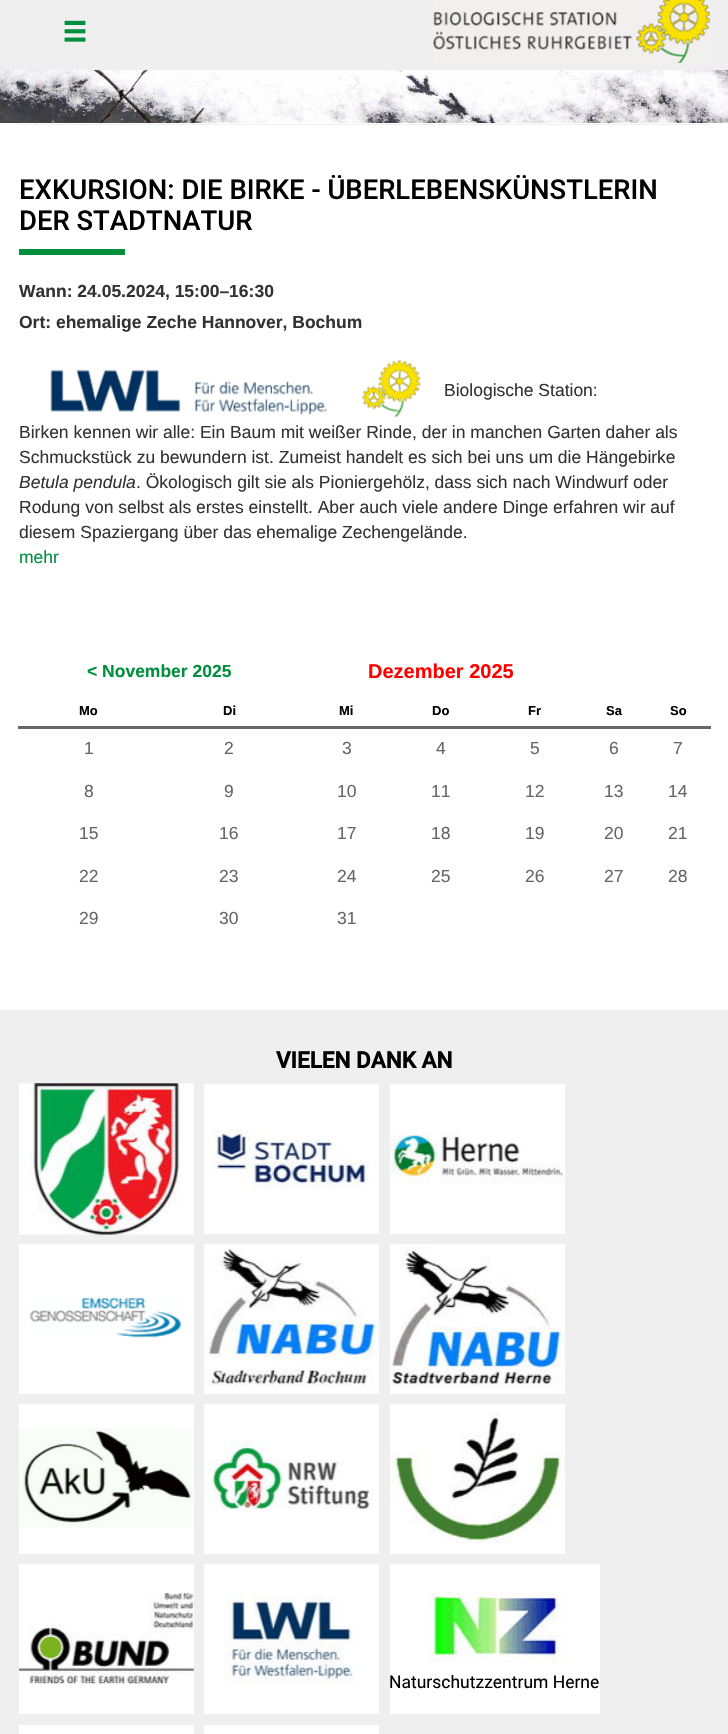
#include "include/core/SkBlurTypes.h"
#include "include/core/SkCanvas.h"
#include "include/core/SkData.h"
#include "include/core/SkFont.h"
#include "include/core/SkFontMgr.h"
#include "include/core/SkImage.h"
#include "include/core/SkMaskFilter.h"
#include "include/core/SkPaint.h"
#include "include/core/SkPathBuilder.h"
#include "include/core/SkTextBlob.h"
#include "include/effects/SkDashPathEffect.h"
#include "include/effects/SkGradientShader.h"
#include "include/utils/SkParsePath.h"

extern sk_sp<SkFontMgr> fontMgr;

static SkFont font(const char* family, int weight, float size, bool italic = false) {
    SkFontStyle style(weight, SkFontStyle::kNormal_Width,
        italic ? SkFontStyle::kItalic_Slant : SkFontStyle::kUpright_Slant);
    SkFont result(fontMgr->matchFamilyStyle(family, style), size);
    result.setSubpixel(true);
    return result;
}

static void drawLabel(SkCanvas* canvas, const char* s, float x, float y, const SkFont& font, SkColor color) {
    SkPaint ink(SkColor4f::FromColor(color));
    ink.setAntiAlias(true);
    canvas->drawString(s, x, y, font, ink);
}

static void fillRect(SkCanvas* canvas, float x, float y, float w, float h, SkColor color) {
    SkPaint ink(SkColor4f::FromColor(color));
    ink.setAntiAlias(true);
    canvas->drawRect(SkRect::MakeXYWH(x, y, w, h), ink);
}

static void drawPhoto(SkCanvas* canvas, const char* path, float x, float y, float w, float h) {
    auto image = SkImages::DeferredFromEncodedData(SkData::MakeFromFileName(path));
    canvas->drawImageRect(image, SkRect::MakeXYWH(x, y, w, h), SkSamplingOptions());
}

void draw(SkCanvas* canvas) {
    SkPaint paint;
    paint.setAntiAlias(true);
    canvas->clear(0xFFFFFFFF);
    fillRect(canvas, 0, 0, 728, 70, 0xFFEFEFEF);
    drawPhoto(canvas, "assets/img1.png", 64, 20, 22, 22);
    drawPhoto(canvas, "assets/img2.png", 433, 0, 277, 63);
    drawPhoto(canvas, "assets/img3.png", 0, 70, 728, 53);
    fillRect(canvas, 19, 124, 691, 1, 0xFFEFEFEF);
    SkFont font1 = font("Roboto", 500, 27.5f);
    drawLabel(canvas, "EXKURSION: DIE BIRKE - ÜBERLEBENSKÜNSTLERIN", 19, 199, font1, 0xFF000000);
    drawLabel(canvas, "DER STADTNATUR", 19, 230, font1, 0xFF000000);
    fillRect(canvas, 19, 249, 106, 6, 0xFF008F3D);
    SkFont font2 = font("Liberation Sans", 700, 17.5f);
    drawLabel(canvas, "Wann: 24.05.2024, 15:00–16:30", 19, 297, font2, 0xFF333333);
    drawLabel(canvas, "Ort: ehemalige Zeche Hannover, Bochum", 19, 328, font2, 0xFF333333);
    drawPhoto(canvas, "assets/img4.png", 50, 369, 278, 46);
    drawPhoto(canvas, "assets/img5.png", 361, 360, 60, 58);
    SkFont font3 = font("Liberation Sans", 400, 17.5f);
    drawLabel(canvas, "Biologische Station:", 444, 396, font3, 0xFF333333);
    drawLabel(canvas, "Birken kennen wir alle: Ein Baum mit weißer Rinde, der in manchen Garten daher als", 19, 438, font3, 0xFF333333);
    drawLabel(canvas, "Schmuckstück zu bewundern ist. Zumeist handelt es sich bei uns um die Hängebirke", 19, 463, font3, 0xFF333333);
    SkFont font4 = font("Liberation Sans", 400, 17.5f, true);
    drawLabel(canvas, "Betula pendula", 19, 488, font4, 0xFF333333);
    drawLabel(canvas, ". Ökologisch gilt sie als Pioniergehölz, dass sich nach Windwurf oder", 136, 488, font3, 0xFF333333);
    drawLabel(canvas, "Rodung von selbst als erstes einstellt. Aber auch viele andere Dinge erfahren wir auf", 19, 513, font3, 0xFF333333);
    drawLabel(canvas, "diesem Spaziergang über das ehemalige Zechengelände.", 19, 538, font3, 0xFF333333);
    drawLabel(canvas, "mehr", 19, 563, font3, 0xFF008F3D);
    fillRect(canvas, 18, 726, 693, 3, 0xFF666666);
    drawLabel(canvas, "< November 2025", 87, 677, font2, 0xFF008F3D);
    SkFont font5 = font("Liberation Sans", 700, 20);
    drawLabel(canvas, "Dezember 2025", 368, 678, font5, 0xFFFF0000);
    SkFont font6 = font("Liberation Sans", 700, 13);
    drawLabel(canvas, "Mo", 79, 715, font6, 0xFF000000);
    drawLabel(canvas, "Di", 223, 715, font6, 0xFF000000);
    drawLabel(canvas, "Mi", 339, 715, font6, 0xFF000000);
    drawLabel(canvas, "Do", 432, 715, font6, 0xFF000000);
    drawLabel(canvas, "Fr", 528, 715, font6, 0xFF000000);
    drawLabel(canvas, "Sa", 606, 715, font6, 0xFF000000);
    drawLabel(canvas, "So", 670, 715, font6, 0xFF000000);
    drawLabel(canvas, "1", 84, 754, font3, 0xFF666666);
    drawLabel(canvas, "2", 224, 754, font3, 0xFF666666);
    drawLabel(canvas, "3", 342, 754, font3, 0xFF666666);
    drawLabel(canvas, "4", 436, 754, font3, 0xFF666666);
    drawLabel(canvas, "5", 530, 754, font3, 0xFF666666);
    drawLabel(canvas, "6", 609, 754, font3, 0xFF666666);
    drawLabel(canvas, "7", 673, 754, font3, 0xFF666666);
    drawLabel(canvas, "8", 84, 797, font3, 0xFF666666);
    drawLabel(canvas, "9", 224, 797, font3, 0xFF666666);
    drawLabel(canvas, "10", 337, 797, font3, 0xFF666666);
    drawLabel(canvas, "11", 431, 797, font3, 0xFF666666);
    drawLabel(canvas, "12", 525, 797, font3, 0xFF666666);
    drawLabel(canvas, "13", 604, 797, font3, 0xFF666666);
    drawLabel(canvas, "14", 668, 797, font3, 0xFF666666);
    drawLabel(canvas, "15", 79, 839, font3, 0xFF666666);
    drawLabel(canvas, "16", 219, 839, font3, 0xFF666666);
    drawLabel(canvas, "17", 337, 839, font3, 0xFF666666);
    drawLabel(canvas, "18", 431, 839, font3, 0xFF666666);
    drawLabel(canvas, "19", 525, 839, font3, 0xFF666666);
    drawLabel(canvas, "20", 604, 839, font3, 0xFF666666);
    drawLabel(canvas, "21", 668, 839, font3, 0xFF666666);
    drawLabel(canvas, "22", 79, 882, font3, 0xFF666666);
    drawLabel(canvas, "23", 219, 882, font3, 0xFF666666);
    drawLabel(canvas, "24", 337, 882, font3, 0xFF666666);
    drawLabel(canvas, "25", 431, 882, font3, 0xFF666666);
    drawLabel(canvas, "26", 525, 882, font3, 0xFF666666);
    drawLabel(canvas, "27", 604, 882, font3, 0xFF666666);
    drawLabel(canvas, "28", 668, 882, font3, 0xFF666666);
    drawLabel(canvas, "29", 79, 924, font3, 0xFF666666);
    drawLabel(canvas, "30", 219, 924, font3, 0xFF666666);
    drawLabel(canvas, "31", 337, 924, font3, 0xFF666666);
    fillRect(canvas, 0, 1010, 728, 724, 0xFFEFEFEF);
    SkFont font7 = font("Roboto", 700, 22.5f);
    drawLabel(canvas, "VIELEN DANK AN", 276, 1068, font7, 0xFF000000);
    drawPhoto(canvas, "assets/img6.png", 19, 1083, 175, 152);
    fillRect(canvas, 204, 1084, 175, 150, 0xFFFFFFFF);
    drawPhoto(canvas, "assets/img7.png", 204, 1129, 167, 61);
    fillRect(canvas, 390, 1084, 175, 150, 0xFFFFFFFF);
    drawPhoto(canvas, "assets/img8.png", 390, 1133, 175, 51);
    fillRect(canvas, 19, 1244, 175, 150, 0xFFFFFFFF);
    drawPhoto(canvas, "assets/img9.png", 29, 1298, 153, 40);
    fillRect(canvas, 204, 1244, 175, 150, 0xFFFFFFFF);
    drawPhoto(canvas, "assets/img10.png", 204, 1249, 175, 137);
    fillRect(canvas, 390, 1244, 175, 150, 0xFFFFFFFF);
    drawPhoto(canvas, "assets/img11.png", 390, 1247, 175, 140);
    fillRect(canvas, 19, 1404, 175, 150, 0xFFFFFFFF);
    drawPhoto(canvas, "assets/img12.png", 19, 1428, 175, 100);
    fillRect(canvas, 204, 1404, 175, 150, 0xFFFFFFFF);
    drawPhoto(canvas, "assets/img13.png", 204, 1439, 170, 71);
    fillRect(canvas, 390, 1404, 175, 150, 0xFFFFFFFF);
    drawPhoto(canvas, "assets/img14.png", 390, 1413, 175, 130);
    fillRect(canvas, 19, 1564, 175, 150, 0xFFFFFFFF);
    drawPhoto(canvas, "assets/img15.png", 19, 1593, 175, 91);
    fillRect(canvas, 204, 1564, 175, 150, 0xFFFFFFFF);
    drawPhoto(canvas, "assets/img16.png", 224, 1594, 140, 91);
    fillRect(canvas, 390, 1564, 210, 150, 0xFFFFFFFF);
    drawPhoto(canvas, "assets/img17.png", 427, 1592, 141, 70);
    SkFont font8 = font("Roboto", 400, 17.5f);
    drawLabel(canvas, "Naturschutzzentrum Herne", 389, 1688, font8, 0xFF000000);
    fillRect(canvas, 19, 1725, 175, 9, 0xFFFFFFFF);
    fillRect(canvas, 204, 1725, 175, 9, 0xFFFFFFFF);
}
